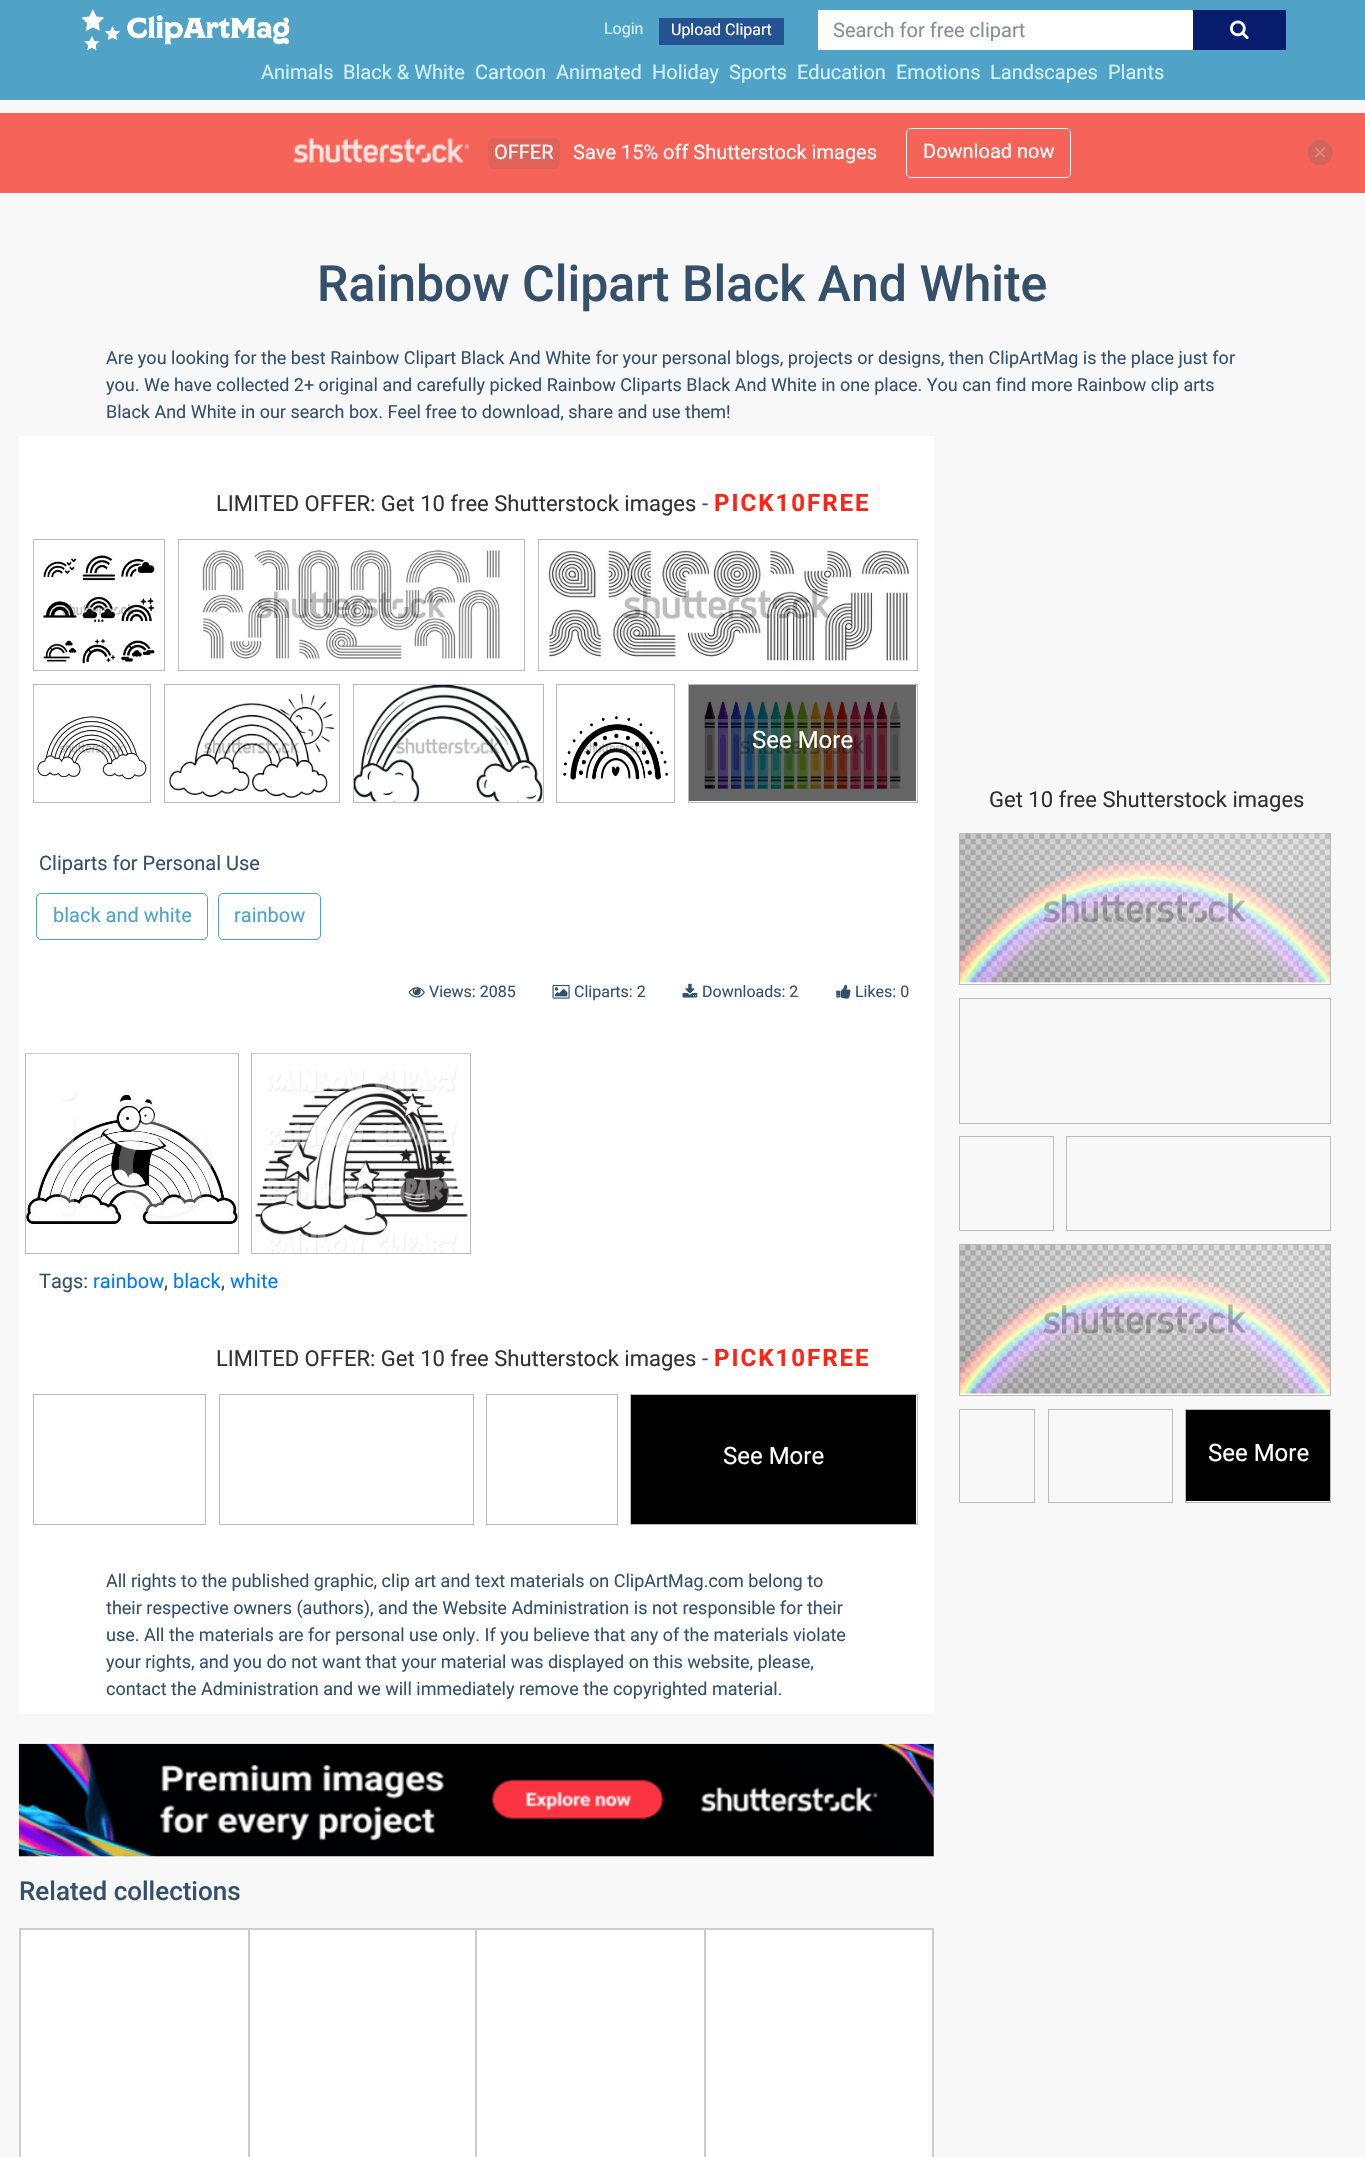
#include "include/core/SkBlurTypes.h"
#include "include/core/SkCanvas.h"
#include "include/core/SkData.h"
#include "include/core/SkFont.h"
#include "include/core/SkFontMgr.h"
#include "include/core/SkImage.h"
#include "include/core/SkMaskFilter.h"
#include "include/core/SkPaint.h"
#include "include/core/SkPathBuilder.h"
#include "include/core/SkTextBlob.h"
#include "include/effects/SkDashPathEffect.h"
#include "include/effects/SkGradientShader.h"
#include "include/utils/SkParsePath.h"

extern sk_sp<SkFontMgr> fontMgr;

static SkFont font(const char* family, int weight, float size, bool italic = false) {
    SkFontStyle style(weight, SkFontStyle::kNormal_Width,
        italic ? SkFontStyle::kItalic_Slant : SkFontStyle::kUpright_Slant);
    SkFont result(fontMgr->matchFamilyStyle(family, style), size);
    result.setSubpixel(true);
    return result;
}

static void drawLabel(SkCanvas* canvas, const char* s, float x, float y, const SkFont& font, SkColor color) {
    SkPaint ink(SkColor4f::FromColor(color));
    ink.setAntiAlias(true);
    canvas->drawString(s, x, y, font, ink);
}

static void drawTracked(SkCanvas* canvas, const char* s, float x, float y, const SkFont& font, const SkPaint& ink, float letter, float word) {
    std::vector<SkGlyphID> glyphs(font.countText(s, strlen(s), SkTextEncoding::kUTF8));
    std::vector<float> xs(glyphs.size());
    font.textToGlyphs(s, strlen(s), SkTextEncoding::kUTF8, glyphs);
    font.getXPos(glyphs, xs, x);
    float extra = 0;
    for (size_t i = 0; i < glyphs.size(); i++) {
        xs[i] += extra;
        extra += letter + word * (glyphs[i] == font.unicharToGlyph(' '));
    }
    canvas->drawTextBlob(SkTextBlob::MakeFromPosHGlyphs(glyphs, xs, y, font), 0, 0, ink);
}

static void fillRect(SkCanvas* canvas, float x, float y, float w, float h, SkColor color) {
    SkPaint ink(SkColor4f::FromColor(color));
    ink.setAntiAlias(true);
    canvas->drawRect(SkRect::MakeXYWH(x, y, w, h), ink);
}

static void fillRRect(SkCanvas* canvas, float x, float y, float w, float h, float radius, SkColor color) {
    SkPaint ink(SkColor4f::FromColor(color));
    ink.setAntiAlias(true);
    canvas->drawRoundRect(SkRect::MakeXYWH(x, y, w, h), radius, radius, ink);
}

static void drawPhoto(SkCanvas* canvas, const char* path, float x, float y, float w, float h) {
    auto image = SkImages::DeferredFromEncodedData(SkData::MakeFromFileName(path));
    canvas->drawImageRect(image, SkRect::MakeXYWH(x, y, w, h), SkSamplingOptions());
}

void draw(SkCanvas* canvas) {
    SkPaint paint;
    paint.setAntiAlias(true);
    canvas->clear(0xFFF8F8F8);
    fillRect(canvas, 0, 0, 1365, 100, 0xFF50A3C7);
    drawPhoto(canvas, "assets/img1.png", 81, 9, 209, 41);
    fillRect(canvas, 818, 10, 375, 40, 0xFFFFFFFF);
    SkFont font1 = font("Roboto", 400, 20);
    drawLabel(canvas, "Search for free clipart", 833, 37, font1, 0xFF868E96);
    fillRect(canvas, 1193, 10, 93, 40, 0xFF091D6E);
    drawPhoto(canvas, "assets/img2.png", 1230, 20, 19, 20);
    SkFont font2 = font("Roboto", 400, 16);
    drawLabel(canvas, "Login", 604, 34, font2, 0xFFD0F1FF);
    fillRect(canvas, 659, 18, 125, 27, 0xFF255392);
    drawLabel(canvas, "Upload Clipart", 671, 35, font2, 0xFFFFFFFF);
    drawLabel(canvas, "Animals", 261, 79, font1, 0xFFD0F1FF);
    drawLabel(canvas, "Black & White", 343, 79, font1, 0xFFD0F1FF);
    drawLabel(canvas, "Cartoon", 475, 79, font1, 0xFFD0F1FF);
    drawLabel(canvas, "Animated", 556, 79, font1, 0xFFD0F1FF);
    drawLabel(canvas, "Holiday", 652, 79, font1, 0xFFD0F1FF);
    drawLabel(canvas, "Sports", 729, 79, font1, 0xFFD0F1FF);
    drawLabel(canvas, "Education", 797, 79, font1, 0xFFD0F1FF);
    drawLabel(canvas, "Emotions", 896, 79, font1, 0xFFD0F1FF);
    drawLabel(canvas, "Landscapes", 990, 79, font1, 0xFFD0F1FF);
    drawLabel(canvas, "Plants", 1108, 79, font1, 0xFFD0F1FF);
    fillRect(canvas, 0, 113, 1365, 80, 0xFFF66358);
    drawPhoto(canvas, "assets/img3.png", 293, 138, 176, 25);
    fillRRect(canvas, 488, 138, 72, 31, 6, 0xFFE0635A);
    drawLabel(canvas, "OFFER", 494, 159, font1, 0xFFFFFFFF);
    drawLabel(canvas, "Save 15% off Shutterstock images", 573, 159, font1, 0xFFFFFFFF);
    paint.setStroke(true);
    paint.setStrokeWidth(1);
    paint.setColor(0xFFFEFEFE);
    canvas->drawRoundRect(SkRect::MakeXYWH(906.5f, 128.5f, 164, 49), 4.5f, 4.5f, paint);
    drawLabel(canvas, "Download now", 923, 158, font1, 0xFFFFFFFF);
    drawPhoto(canvas, "assets/img4.png", 1308, 140, 25, 25);
    SkFont font3 = font("Roboto", 500, 50);
    drawLabel(canvas, "Rainbow Clipart Black And White", 317, 301, font3, 0xFF34506B);
    SkFont font4 = font("Roboto", 400, 18);
    drawLabel(canvas, "Are you looking for the best Rainbow Clipart Black And White for your personal blogs, projects or designs, then ClipArtMag is the place just for", 106, 364, font4, 0xFF34506B);
    drawLabel(canvas, "you. We have collected 2+ original and carefully picked Rainbow Cliparts Black And White in one place. You can find more Rainbow clip arts", 106, 391, font4, 0xFF34506B);
    drawLabel(canvas, "Black And White in our search box. Feel free to download, share and use them!", 106, 418, font4, 0xFF34506B);
    fillRect(canvas, 19, 436, 915, 1278, 0xFFFFFFFF);
    SkFont font5 = font("Roboto", 400, 22);
    drawLabel(canvas, "LIMITED OFFER: Get 10 free Shutterstock images", 216, 511, font5, 0xFF323232);
    drawLabel(canvas, "-", 702, 511, font5, 0xFF34506B);
    SkFont font6 = font("Roboto", 700, 24);
    paint.setStroke(false);
    paint.setColor(0xFFFF2414);
    drawTracked(canvas, "PICK10FREE", 714, 511, font6, paint, 2, 0);
    paint.setStroke(true);
    paint.setColor(0xFFBABABA);
    canvas->drawRect(SkRect::MakeXYWH(33.5f, 539.5f, 131, 131), paint);
    drawPhoto(canvas, "assets/img5.png", 33, 540, 122, 130);
    canvas->drawRect(SkRect::MakeXYWH(178.5f, 539.5f, 346, 131), paint);
    drawPhoto(canvas, "assets/img6.png", 178, 540, 323, 130);
    canvas->drawRect(SkRect::MakeXYWH(538.5f, 539.5f, 379, 131), paint);
    drawPhoto(canvas, "assets/img7.png", 538, 540, 371, 130);
    canvas->drawRect(SkRect::MakeXYWH(33.5f, 684.5f, 117, 118), paint);
    drawPhoto(canvas, "assets/img8.png", 33, 685, 114, 116);
    canvas->drawRect(SkRect::MakeXYWH(164.5f, 684.5f, 175, 118), paint);
    drawPhoto(canvas, "assets/img9.png", 169, 693, 166, 106);
    canvas->drawRect(SkRect::MakeXYWH(353.5f, 684.5f, 190, 118), paint);
    drawPhoto(canvas, "assets/img10.png", 353, 685, 190, 117);
    canvas->drawRect(SkRect::MakeXYWH(556.5f, 684.5f, 118, 118), paint);
    drawPhoto(canvas, "assets/img11.png", 563, 716, 105, 64);
    canvas->drawRect(SkRect::MakeXYWH(688.5f, 684.5f, 229, 118), paint);
    fillRect(canvas, 689, 685, 227, 116, 0xFF000000);
    drawPhoto(canvas, "assets/img12.png", 689, 685, 227, 116);
    SkFont font7 = font("Roboto", 400, 24);
    drawLabel(canvas, "See More", 752, 748, font7, 0xFFFFFFFF);
    drawLabel(canvas, "Cliparts for Personal Use", 39, 870, font1, 0xFF34506B);
    paint.setColor(0xFF50A3C7);
    canvas->drawRoundRect(SkRect::MakeXYWH(36.5f, 893.5f, 171, 46), 4.5f, 4.5f, paint);
    drawLabel(canvas, "black and white", 53, 922, font1, 0xFF50A3C7);
    canvas->drawRoundRect(SkRect::MakeXYWH(218.5f, 893.5f, 102, 46), 4.5f, 4.5f, paint);
    drawLabel(canvas, "rainbow", 234, 922, font1, 0xFF50A3C7);
    drawPhoto(canvas, "assets/img13.png", 408, 987, 17, 11);
    drawLabel(canvas, "Views: 2085", 429, 997, font2, 0xFF34506B);
    drawPhoto(canvas, "assets/img14.png", 552, 984, 18, 15);
    drawLabel(canvas, "Cliparts: 2", 574, 997, font2, 0xFF34506B);
    drawPhoto(canvas, "assets/img15.png", 682, 983, 16, 15);
    drawLabel(canvas, "Downloads: 2", 702, 997, font2, 0xFF34506B);
    drawPhoto(canvas, "assets/img16.png", 836, 984, 15, 15);
    drawLabel(canvas, "Likes: 0", 855, 997, font2, 0xFF34506B);
    fillRect(canvas, 25, 1253, 214, 1, 0xFFBABABA);
    fillRect(canvas, 25, 1053, 214, 1, 0xFFBABABA);
    fillRect(canvas, 238, 1053, 1, 200, 0xFFBABABA);
    fillRect(canvas, 25, 1053, 1, 200, 0xFFBABABA);
    drawPhoto(canvas, "assets/img17.png", 26, 1053, 212, 173);
    fillRect(canvas, 251, 1253, 220, 1, 0xFFBABABA);
    fillRect(canvas, 251, 1053, 220, 1, 0xFFBABABA);
    fillRect(canvas, 470, 1053, 1, 200, 0xFFBABABA);
    fillRect(canvas, 251, 1053, 1, 200, 0xFFBABABA);
    drawPhoto(canvas, "assets/img18.png", 252, 1053, 218, 200);
    drawLabel(canvas, "Tags:", 39, 1288, font1, 0xFF34506B);
    drawLabel(canvas, "rainbow", 93, 1288, font1, 0xFF007BFF);
    drawLabel(canvas, ",", 164, 1288, font1, 0xFF34506B);
    drawLabel(canvas, "black", 173, 1288, font1, 0xFF007BFF);
    drawLabel(canvas, ",", 221, 1288, font1, 0xFF34506B);
    drawLabel(canvas, "white", 230, 1288, font1, 0xFF007BFF);
    drawLabel(canvas, "LIMITED OFFER: Get 10 free Shutterstock images", 216, 1366, font5, 0xFF323232);
    drawLabel(canvas, "-", 702, 1366, font5, 0xFF34506B);
    paint.setStroke(false);
    paint.setColor(0xFFFF2414);
    drawTracked(canvas, "PICK10FREE", 714, 1366, font6, paint, 2, 0);
    paint.setStroke(true);
    paint.setColor(0xFFBABABA);
    canvas->drawRect(SkRect::MakeXYWH(33.5f, 1394.5f, 172, 130), paint);
    canvas->drawRect(SkRect::MakeXYWH(219.5f, 1394.5f, 254, 130), paint);
    canvas->drawRect(SkRect::MakeXYWH(486.5f, 1394.5f, 131, 130), paint);
    canvas->drawRect(SkRect::MakeXYWH(630.5f, 1394.5f, 287, 130), paint);
    fillRect(canvas, 631, 1395, 285, 129, 0xFF000000);
    drawLabel(canvas, "See More", 723, 1464, font7, 0xFFFFFFFF);
    drawLabel(canvas, "All rights to the published graphic, clip art and text materials on ClipArtMag.com belong to", 106, 1587, font4, 0xFF34506B);
    drawLabel(canvas, "their respective owners (authors), and the Website Administration is not responsible for their", 106, 1614, font4, 0xFF34506B);
    drawLabel(canvas, "use. All the materials are for personal use only. If you believe that any of the materials violate", 106, 1641, font4, 0xFF34506B);
    drawLabel(canvas, "your rights, and you do not want that your material was displayed on this website, please,", 106, 1668, font4, 0xFF34506B);
    drawLabel(canvas, "contact the Administration and we will immediately remove the copyrighted material.", 106, 1695, font4, 0xFF34506B);
    drawPhoto(canvas, "assets/img19.png", 18, 1743, 916, 114);
    SkFont font8 = font("Roboto", 500, 26);
    drawLabel(canvas, "Related collections", 19, 1900, font8, 0xFF34506B);
    fillRect(canvas, 21, 1930, 911, 227, 0xFFFFFFFF);
    paint.setColor(0xFFCCCCCC);
    canvas->drawRect(SkRect::MakeXYWH(19.5f, 1928.5f, 914, 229), paint);
    canvas->drawRect(SkRect::MakeXYWH(20.5f, 1929.5f, 228, 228), paint);
    canvas->drawRect(SkRect::MakeXYWH(249.5f, 1929.5f, 226, 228), paint);
    canvas->drawRect(SkRect::MakeXYWH(476.5f, 1929.5f, 228, 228), paint);
    canvas->drawRect(SkRect::MakeXYWH(705.5f, 1929.5f, 227, 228), paint);
    drawLabel(canvas, "Get 10 free Shutterstock images", 989, 807, font5, 0xFF323232);
    paint.setColor(0xFFBABABA);
    canvas->drawRect(SkRect::MakeXYWH(959.5f, 833.5f, 371, 151), paint);
    drawPhoto(canvas, "assets/img20.png", 960, 833, 370, 151);
    canvas->drawRect(SkRect::MakeXYWH(959.5f, 998.5f, 371, 125), paint);
    canvas->drawRect(SkRect::MakeXYWH(959.5f, 1136.5f, 94, 94), paint);
    canvas->drawRect(SkRect::MakeXYWH(1066.5f, 1136.5f, 264, 94), paint);
    canvas->drawRect(SkRect::MakeXYWH(959.5f, 1244.5f, 371, 151), paint);
    drawPhoto(canvas, "assets/img21.png", 960, 1245, 370, 150);
    canvas->drawRect(SkRect::MakeXYWH(959.5f, 1409.5f, 75, 93), paint);
    canvas->drawRect(SkRect::MakeXYWH(1048.5f, 1409.5f, 124, 93), paint);
    canvas->drawRect(SkRect::MakeXYWH(1185.5f, 1409.5f, 145, 93), paint);
    fillRect(canvas, 1186, 1410, 144, 91, 0xFF000000);
    drawLabel(canvas, "See More", 1208, 1461, font7, 0xFFFFFFFF);
}
